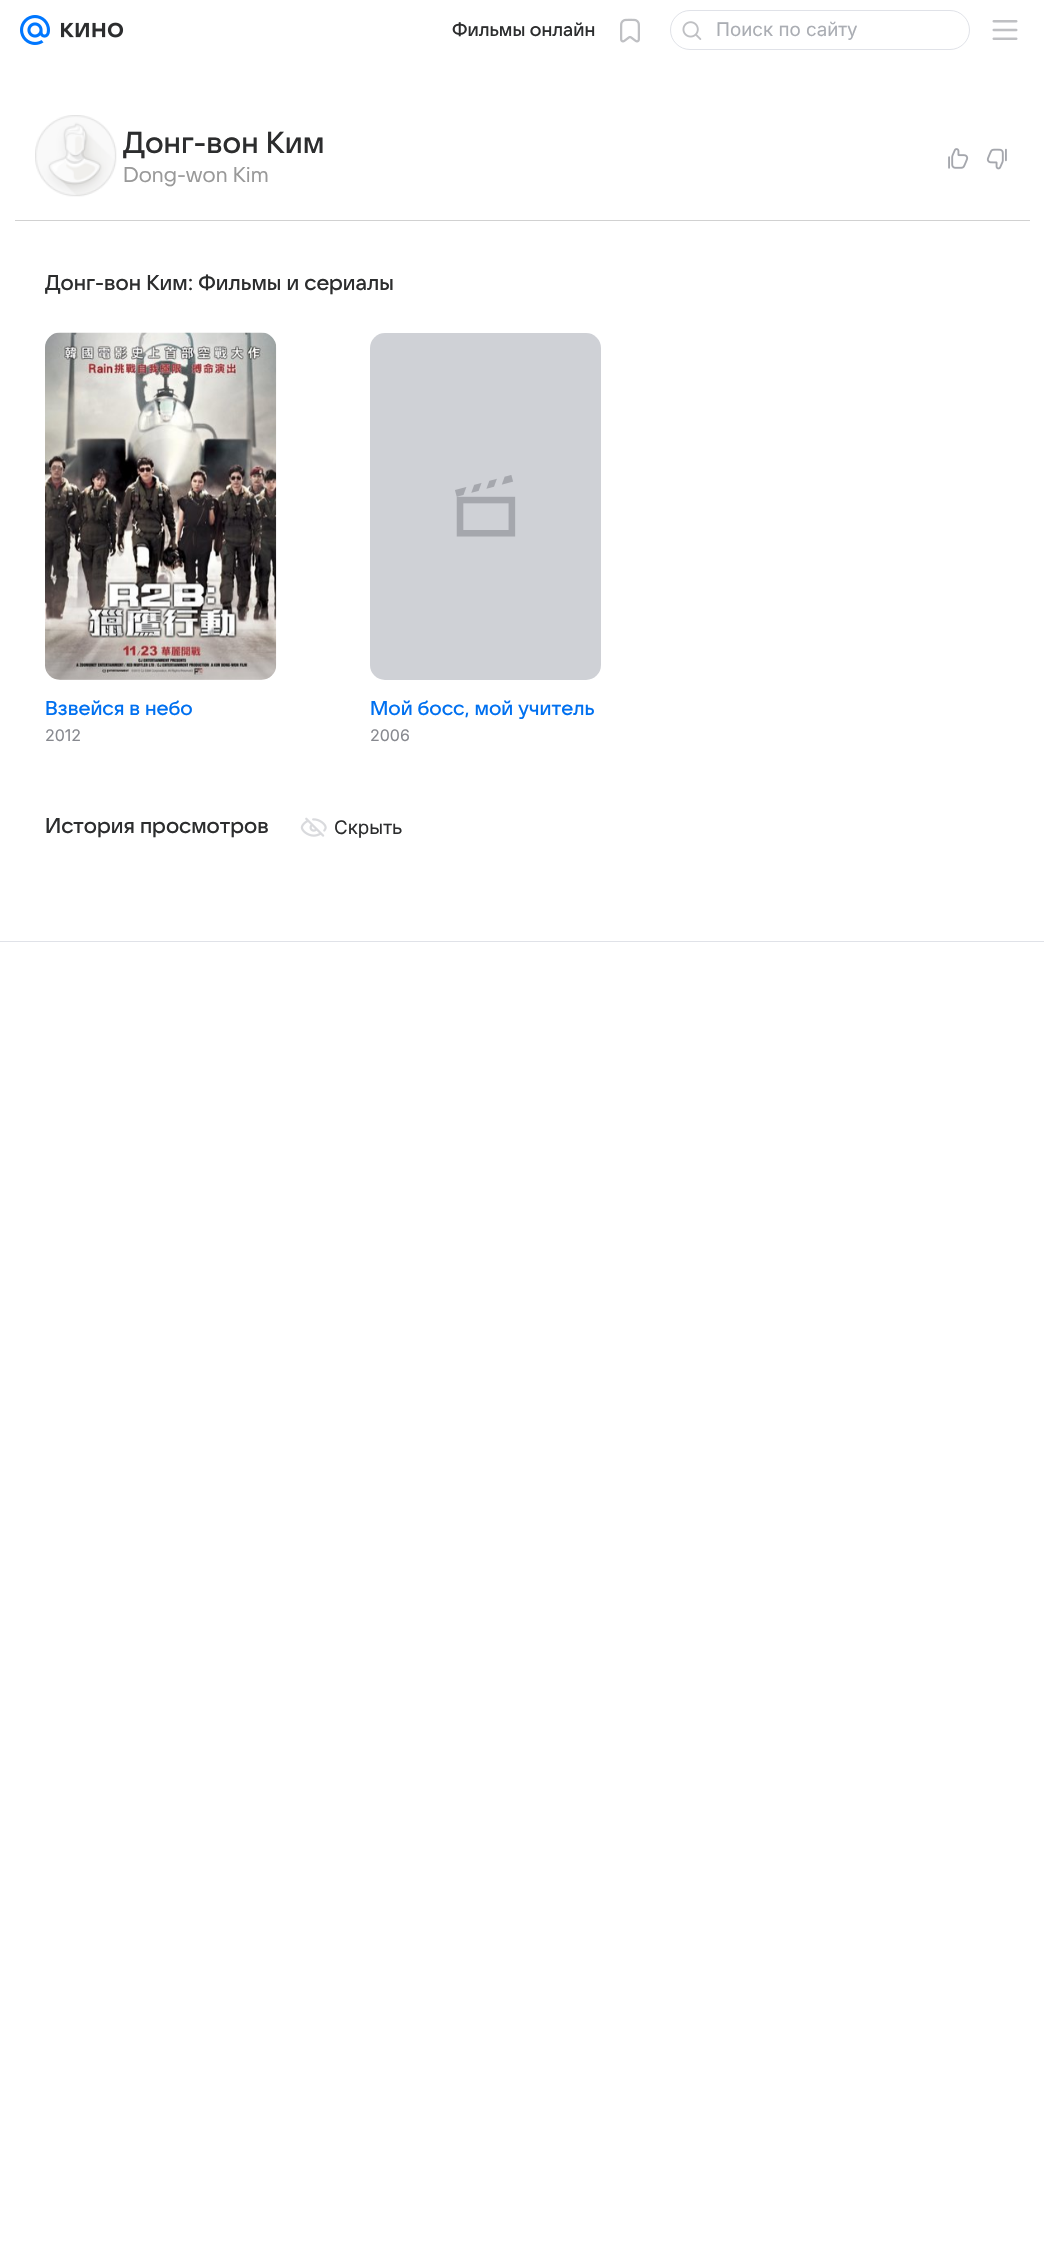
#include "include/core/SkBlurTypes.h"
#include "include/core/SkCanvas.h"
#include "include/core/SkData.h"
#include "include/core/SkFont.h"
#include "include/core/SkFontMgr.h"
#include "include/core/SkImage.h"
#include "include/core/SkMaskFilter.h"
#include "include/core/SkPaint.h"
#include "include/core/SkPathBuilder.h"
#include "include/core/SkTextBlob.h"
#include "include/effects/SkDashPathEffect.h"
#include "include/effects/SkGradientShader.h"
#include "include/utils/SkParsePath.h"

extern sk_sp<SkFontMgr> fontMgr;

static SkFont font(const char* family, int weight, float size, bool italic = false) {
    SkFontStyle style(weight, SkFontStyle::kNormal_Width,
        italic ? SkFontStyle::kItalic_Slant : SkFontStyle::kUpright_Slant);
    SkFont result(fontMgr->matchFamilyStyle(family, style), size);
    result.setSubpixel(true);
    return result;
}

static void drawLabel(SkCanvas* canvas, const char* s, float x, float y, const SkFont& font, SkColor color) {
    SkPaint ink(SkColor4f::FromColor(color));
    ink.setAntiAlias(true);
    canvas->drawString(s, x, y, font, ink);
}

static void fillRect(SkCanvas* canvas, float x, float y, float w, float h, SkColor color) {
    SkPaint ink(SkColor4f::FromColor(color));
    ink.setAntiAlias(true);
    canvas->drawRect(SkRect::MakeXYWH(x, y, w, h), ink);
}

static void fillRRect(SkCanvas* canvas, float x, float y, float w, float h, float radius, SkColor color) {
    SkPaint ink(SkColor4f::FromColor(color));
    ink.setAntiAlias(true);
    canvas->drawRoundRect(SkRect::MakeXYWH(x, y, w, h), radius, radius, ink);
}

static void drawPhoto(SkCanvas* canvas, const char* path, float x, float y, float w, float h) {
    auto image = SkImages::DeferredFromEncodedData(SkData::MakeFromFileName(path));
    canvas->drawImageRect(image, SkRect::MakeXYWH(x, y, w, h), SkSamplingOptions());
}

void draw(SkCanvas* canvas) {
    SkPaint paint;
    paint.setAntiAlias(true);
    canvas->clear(0xFFFFFFFF);
    drawPhoto(canvas, "assets/img1.png", 20, 15, 30, 30);
    drawPhoto(canvas, "assets/img2.png", 61, 22, 63, 16);
    SkFont font1 = font("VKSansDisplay", 500, 18.75f);
    drawLabel(canvas, "Фильмы онлайн", 452, 36, font1, 0xFF2C2D2E);
    drawPhoto(canvas, "assets/img3.png", 620, 18, 20, 25);
    paint.setStroke(true);
    paint.setStrokeWidth(1);
    paint.setColor(0xFFE0E2E8);
    canvas->drawRoundRect(SkRect::MakeXYWH(670.5f, 10.5f, 299, 39), 19.5f, 19.5f, paint);
    drawPhoto(canvas, "assets/img4.png", 682, 21, 20, 19);
    SkFont font2 = font("Inter", 400, 18.75f);
    drawLabel(canvas, "Поиск по сайту", 716, 36, font2, 0xFFAAADB3);
    drawPhoto(canvas, "assets/img5.png", 992, 20, 26, 20);
    fillRect(canvas, 15, 220, 1015, 1, 0xFFD1D1D1);
    drawPhoto(canvas, "assets/img6.png", 35, 115, 82, 82);
    SkFont font3 = font("VKSansDisplay", 500, 30);
    drawLabel(canvas, "Донг-вон Ким", 123, 153, font3, 0xFF2C2D2E);
    SkFont font4 = font("VKSansDisplay", 400, 21.25f);
    drawLabel(canvas, "Dong-won Kim", 123, 182, font4, 0xFF999999);
    drawPhoto(canvas, "assets/img7.png", 948, 148, 21, 21);
    drawPhoto(canvas, "assets/img8.png", 986, 148, 21, 22);
    SkFont font5 = font("VKSansDisplay", 500, 21.25f);
    drawLabel(canvas, "Донг-вон Ким: Фильмы и сериалы", 45, 290, font5, 0xFF2C2D2E);
    drawPhoto(canvas, "assets/img9.png", 45, 332, 232, 348);
    SkFont font6 = font("VKSansDisplay", 500, 20);
    drawLabel(canvas, "Взвейся в небо", 45, 715, font6, 0xFF0070F0);
    SkFont font7 = font("Inter", 400, 16);
    drawLabel(canvas, "2012", 45, 741, font7, 0xFF87898F);
    fillRRect(canvas, 370, 333, 231, 347, 15, 0xFFCFD1D6);
    drawPhoto(canvas, "assets/img10.png", 455, 475, 61, 62);
    drawLabel(canvas, "Мой босс, мой учитель", 370, 715, font6, 0xFF0070F0);
    drawLabel(canvas, "2006", 370, 741, font7, 0xFF87898F);
    drawLabel(canvas, "История просмотров", 45, 833, font5, 0xFF2C2D2E);
    drawPhoto(canvas, "assets/img11.png", 300, 817, 27, 20);
    drawLabel(canvas, "Скрыть", 334, 834, font2, 0xFF2C2D2E);
    fillRect(canvas, 0, 941, 1044, 1, 0xFFE0E2E8);
}
